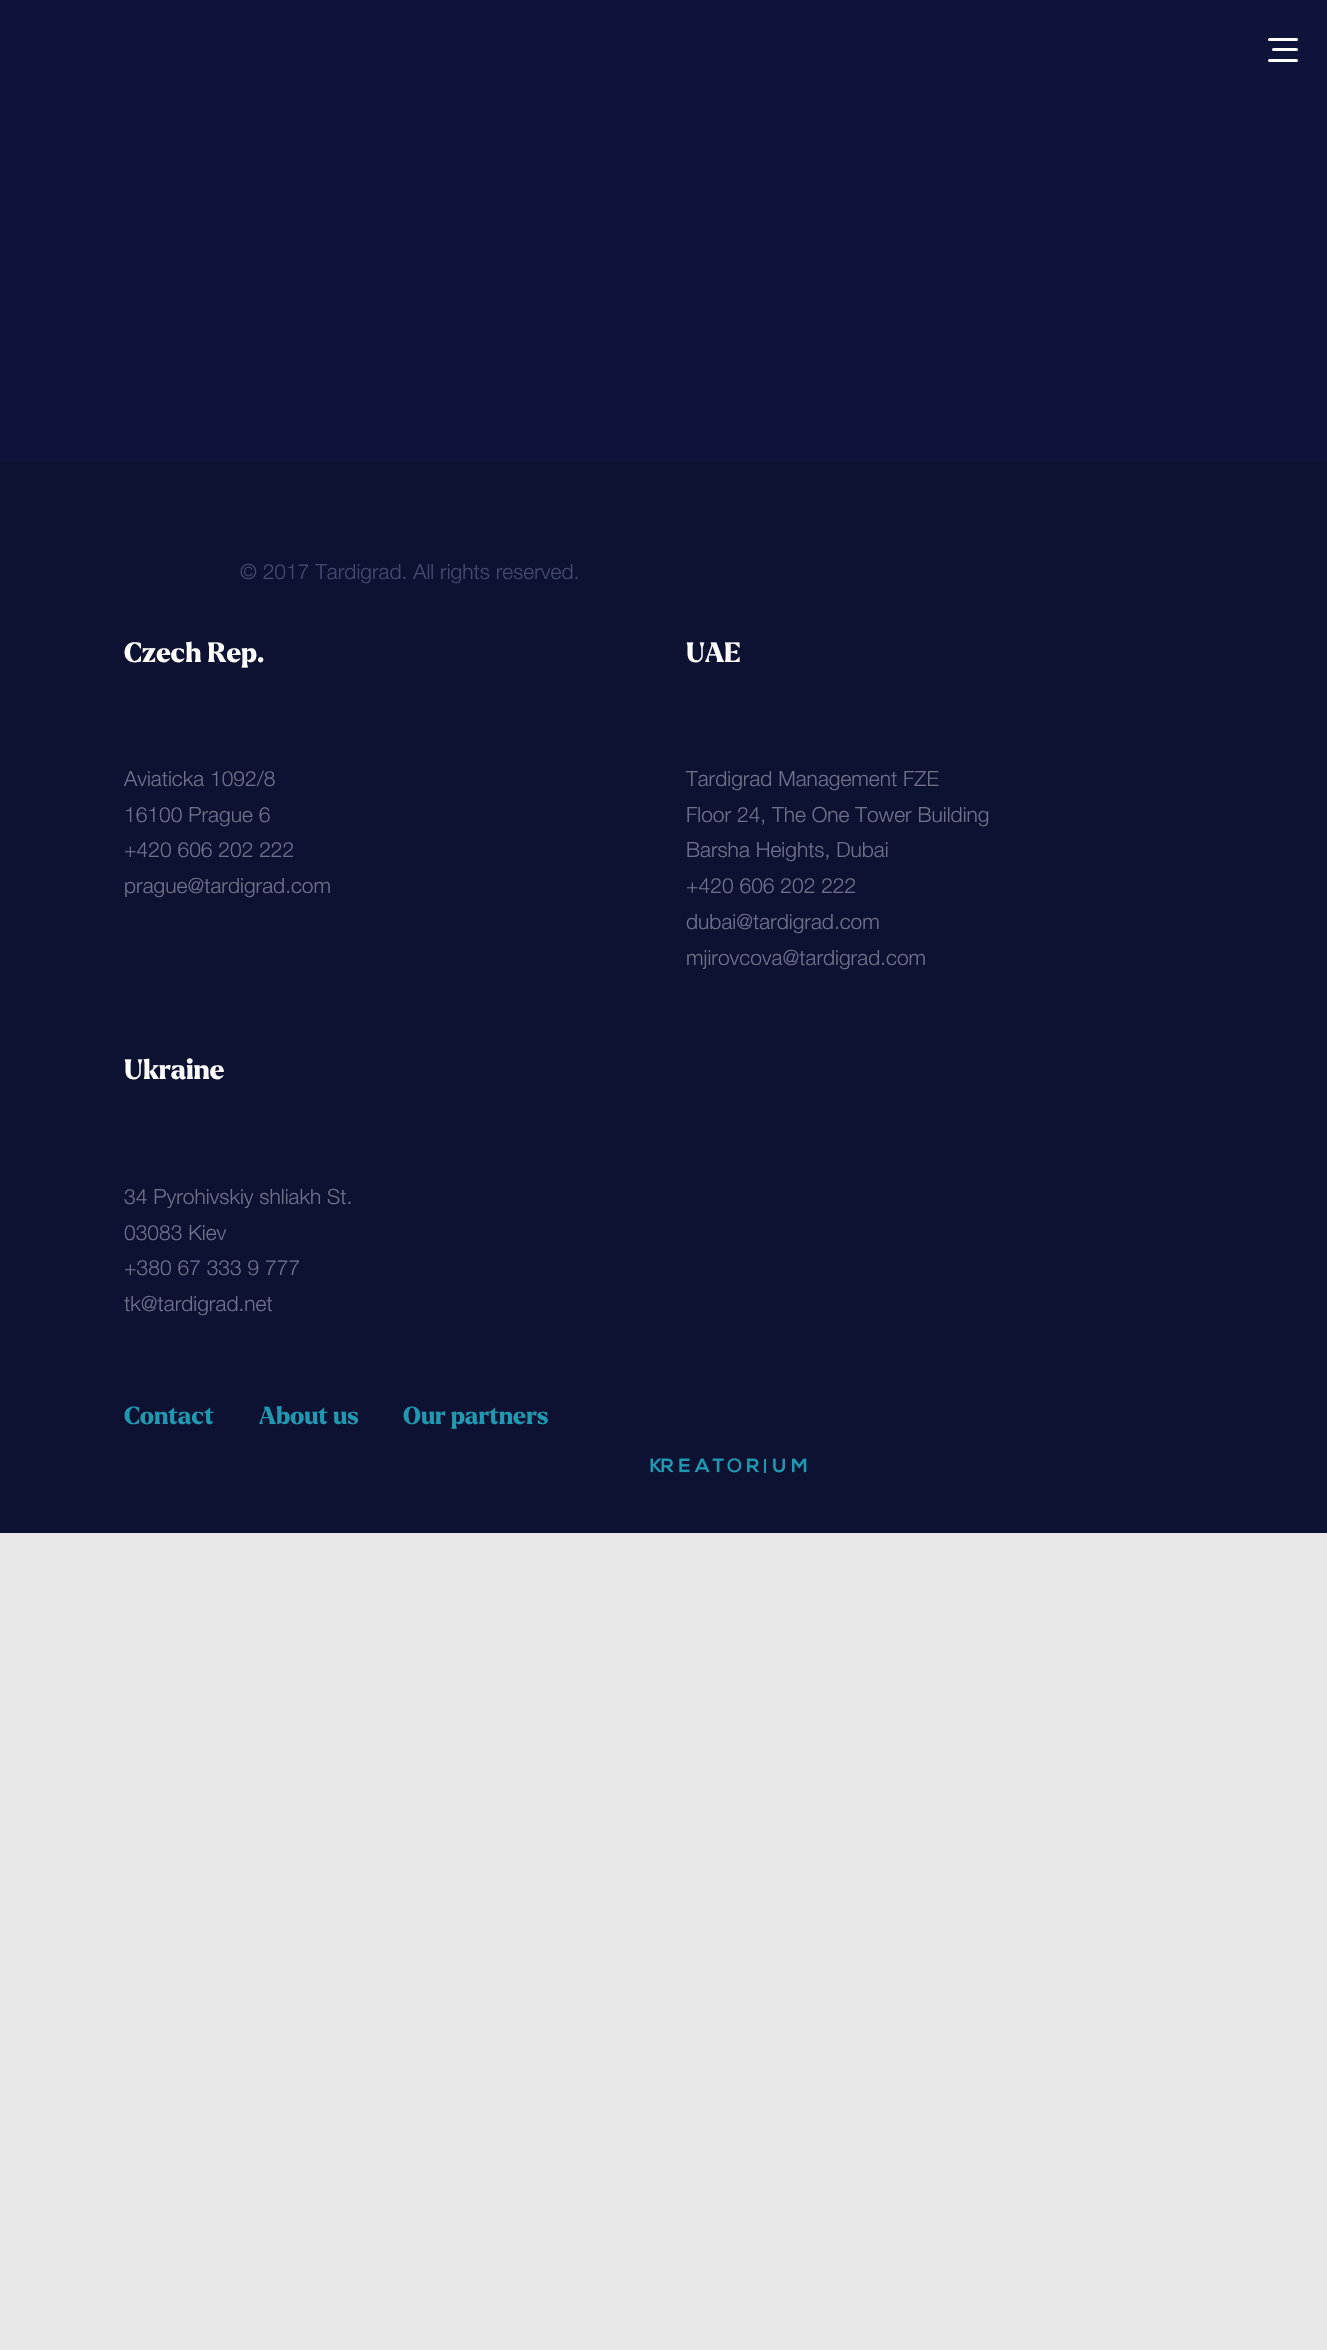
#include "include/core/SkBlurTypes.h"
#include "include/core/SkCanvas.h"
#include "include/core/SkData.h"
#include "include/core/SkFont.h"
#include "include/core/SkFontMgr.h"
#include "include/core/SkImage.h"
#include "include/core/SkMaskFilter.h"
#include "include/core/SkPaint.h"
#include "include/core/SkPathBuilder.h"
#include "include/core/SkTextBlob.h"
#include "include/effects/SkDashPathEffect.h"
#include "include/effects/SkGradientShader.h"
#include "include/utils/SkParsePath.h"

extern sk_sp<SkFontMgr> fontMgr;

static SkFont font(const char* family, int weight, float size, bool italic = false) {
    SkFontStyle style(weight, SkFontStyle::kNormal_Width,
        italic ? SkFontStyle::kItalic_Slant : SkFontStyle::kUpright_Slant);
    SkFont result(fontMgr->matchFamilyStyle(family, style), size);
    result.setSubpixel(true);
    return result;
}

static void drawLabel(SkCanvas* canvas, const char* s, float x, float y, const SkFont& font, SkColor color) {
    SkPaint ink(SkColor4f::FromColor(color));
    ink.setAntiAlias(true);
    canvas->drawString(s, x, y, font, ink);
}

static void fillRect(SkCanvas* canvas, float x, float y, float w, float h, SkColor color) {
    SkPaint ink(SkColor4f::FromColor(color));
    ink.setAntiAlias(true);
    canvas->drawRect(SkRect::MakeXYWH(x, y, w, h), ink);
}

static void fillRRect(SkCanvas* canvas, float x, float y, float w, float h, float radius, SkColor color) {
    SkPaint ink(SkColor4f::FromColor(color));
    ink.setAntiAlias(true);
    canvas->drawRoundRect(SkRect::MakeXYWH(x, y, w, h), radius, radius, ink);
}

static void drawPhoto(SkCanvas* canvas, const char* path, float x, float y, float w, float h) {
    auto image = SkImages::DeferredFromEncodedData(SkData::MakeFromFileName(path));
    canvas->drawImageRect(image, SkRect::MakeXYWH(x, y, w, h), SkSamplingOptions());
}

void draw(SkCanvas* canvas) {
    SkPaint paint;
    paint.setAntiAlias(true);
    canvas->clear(0xFFE8E8E8);
    fillRect(canvas, 0, 0, 1327, 461, 0xFF0E133A);
    fillRRect(canvas, 1268, 38, 30, 3, 1.5f, 0xFFFFFFFF);
    fillRRect(canvas, 1277, 48, 21, 3, 1.5f, 0xFFFFFFFF);
    fillRRect(canvas, 1272, 48, 21, 3, 1.5f, 0xFFFFFFFF);
    fillRRect(canvas, 1268, 59, 30, 3, 1.5f, 0xFFFFFFFF);
    fillRect(canvas, 0, 461, 1327, 1072, 0xFF0D1132);
    SkFont font1 = font("Helvetica Neue", 300, 21);
    drawLabel(canvas, "© 2017 Tardigrad. All rights reserved.", 240, 579, font1, 0xFF424B6F);
    SkFont font2 = font("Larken", 800, 27);
    drawLabel(canvas, "Czech Rep.", 124, 662, font2, 0xFFFFFFFF);
    drawLabel(canvas, "Aviaticka 1092/8", 124, 786, font1, 0xFF6E7189);
    drawLabel(canvas, "16100 Prague 6", 124, 822, font1, 0xFF6E7189);
    drawLabel(canvas, "+420 606 202 222", 124, 857, font1, 0xFF6E7189);
    drawLabel(canvas, "prague@tardigrad.com", 124, 893, font1, 0xFF6E7189);
    drawLabel(canvas, "UAE", 686, 662, font2, 0xFFFFFFFF);
    drawLabel(canvas, "Tardigrad Management FZE", 686, 786, font1, 0xFF6E7189);
    drawLabel(canvas, "Floor 24, The One Tower Building", 686, 822, font1, 0xFF6E7189);
    drawLabel(canvas, "Barsha Heights, Dubai", 686, 857, font1, 0xFF6E7189);
    drawLabel(canvas, "+420 606 202 222", 686, 893, font1, 0xFF6E7189);
    drawLabel(canvas, "dubai@tardigrad.com", 686, 929, font1, 0xFF6E7189);
    drawLabel(canvas, "mjirovcova@tardigrad.com", 686, 965, font1, 0xFF6E7189);
    drawLabel(canvas, "Ukraine", 124, 1079, font2, 0xFFFFFFFF);
    drawLabel(canvas, "34 Pyrohivskiy shliakh St.", 124, 1204, font1, 0xFF6E7189);
    drawLabel(canvas, "03083 Kiev", 124, 1240, font1, 0xFF6E7189);
    drawLabel(canvas, "+380 67 333 9 777", 124, 1275, font1, 0xFF6E7189);
    drawLabel(canvas, "tk@tardigrad.net", 124, 1311, font1, 0xFF6E7189);
    SkFont font3 = font("Larken", 800, 24);
    drawLabel(canvas, "Contact", 124, 1424, font3, 0xFF2098AF);
    drawLabel(canvas, "About us", 259, 1424, font3, 0xFF2098AF);
    drawLabel(canvas, "Our partners", 403, 1424, font3, 0xFF2098AF);
    drawPhoto(canvas, "assets/img1.png", 650, 1458, 157, 15);
}
